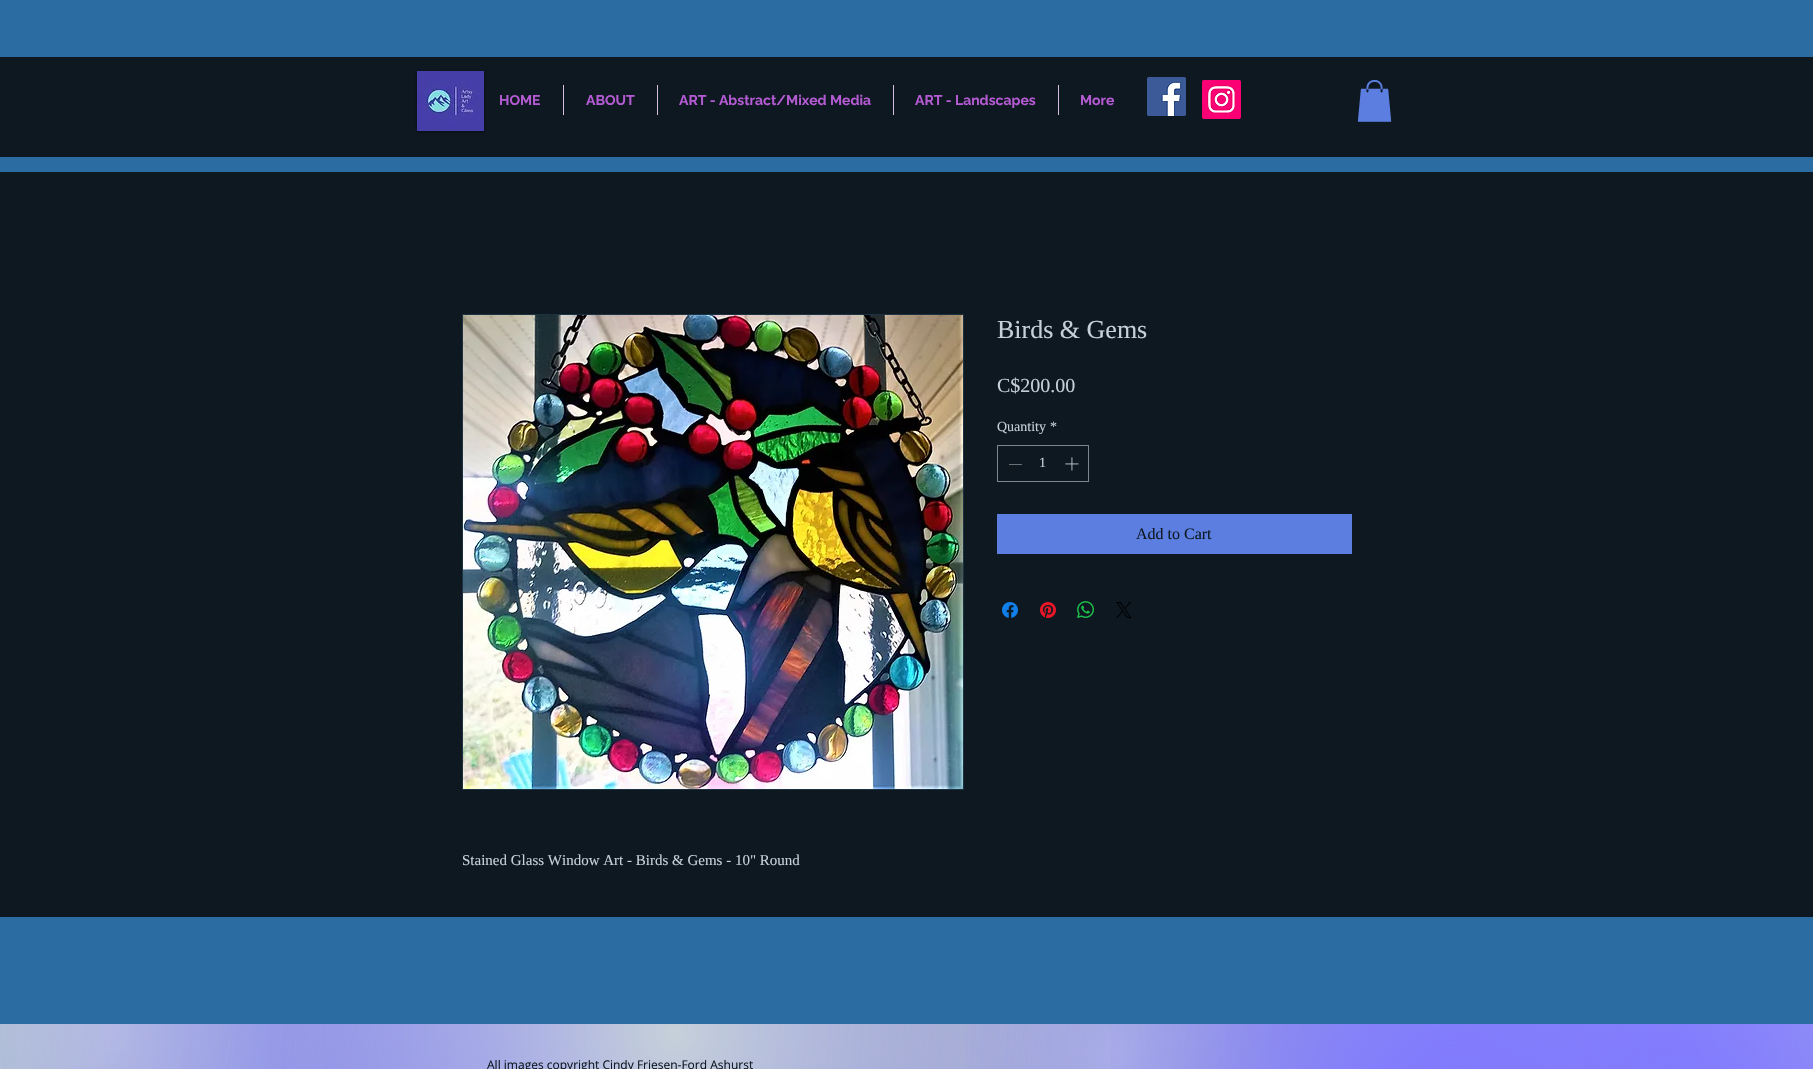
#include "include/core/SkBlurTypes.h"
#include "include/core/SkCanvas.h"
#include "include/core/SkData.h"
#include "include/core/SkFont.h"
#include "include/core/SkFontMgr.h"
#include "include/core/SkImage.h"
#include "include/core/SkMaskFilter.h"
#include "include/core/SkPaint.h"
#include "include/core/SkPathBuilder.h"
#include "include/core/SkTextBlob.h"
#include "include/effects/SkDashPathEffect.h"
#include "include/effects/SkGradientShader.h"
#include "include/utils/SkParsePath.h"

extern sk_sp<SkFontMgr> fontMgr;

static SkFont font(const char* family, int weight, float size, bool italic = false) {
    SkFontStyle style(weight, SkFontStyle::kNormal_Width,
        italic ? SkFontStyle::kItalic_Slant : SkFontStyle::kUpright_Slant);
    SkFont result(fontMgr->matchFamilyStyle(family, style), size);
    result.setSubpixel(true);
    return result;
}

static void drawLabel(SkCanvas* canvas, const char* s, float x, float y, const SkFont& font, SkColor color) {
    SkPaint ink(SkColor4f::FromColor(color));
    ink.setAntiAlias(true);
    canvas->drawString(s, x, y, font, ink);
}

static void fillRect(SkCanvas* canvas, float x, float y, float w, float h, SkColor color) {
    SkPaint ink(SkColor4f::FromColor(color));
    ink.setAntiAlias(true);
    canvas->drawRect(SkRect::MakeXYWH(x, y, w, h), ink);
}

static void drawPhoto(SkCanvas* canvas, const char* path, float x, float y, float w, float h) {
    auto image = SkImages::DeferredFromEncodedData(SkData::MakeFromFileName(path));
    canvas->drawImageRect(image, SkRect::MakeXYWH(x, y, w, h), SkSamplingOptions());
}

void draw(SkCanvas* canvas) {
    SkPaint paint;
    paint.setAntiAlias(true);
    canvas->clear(0xFF0E1821);
    fillRect(canvas, 0, 0, 1813, 172, 0xFF2B6CA3);
    fillRect(canvas, 0, 57, 1813, 100, 0xFF0E1821);
    paint.setColor(0x80000000);
    paint.setMaskFilter(SkMaskFilter::MakeBlur(kNormal_SkBlurStyle, 1.5f));
    canvas->drawRect(SkRect::MakeXYWH(417, 72, 67, 60), paint);
    paint.setMaskFilter(nullptr);
    drawPhoto(canvas, "assets/img1.png", 417, 71, 67, 60);
    SkFont font1 = font("Raleway", 700, 14);
    drawLabel(canvas, "HOME", 499, 105, font1, 0xFFB45AD3);
    fillRect(canvas, 563, 85, 1, 30, 0xFFD8BDE2);
    drawLabel(canvas, "ABOUT", 586, 105, font1, 0xFFB45AD3);
    fillRect(canvas, 657, 85, 1, 30, 0xFFD8BDE2);
    drawLabel(canvas, "ART - Abstract/Mixed Media", 679, 105, font1, 0xFFB45AD3);
    fillRect(canvas, 893, 85, 1, 30, 0xFFD8BDE2);
    drawLabel(canvas, "ART - Landscapes", 915, 105, font1, 0xFFB45AD3);
    fillRect(canvas, 1058, 85, 1, 30, 0xFFD8BDE2);
    drawLabel(canvas, "More", 1080, 105, font1, 0xFFB45AD3);
    drawPhoto(canvas, "assets/img2.png", 1147, 77, 39, 39);
    drawPhoto(canvas, "assets/img3.png", 1202, 80, 39, 39);
    drawPhoto(canvas, "assets/img4.png", 1357, 80, 35, 42);
    SkFont font2 = font("Liberation Serif", 400, 26);
    drawLabel(canvas, "Birds & Gems", 997, 338, font2, 0xFFC5D0D9);
    SkFont font3 = font("Liberation Serif", 400, 20);
    drawLabel(canvas, "C$200.00", 997, 392, font3, 0xFFC5D0D9);
    SkFont font4 = font("Liberation Serif", 400, 14);
    drawLabel(canvas, "Quantity", 997, 431, font4, 0xFFC5D0D9);
    drawLabel(canvas, "*", 1050, 431, font4, 0xFFC5D0D9);
    paint.setStroke(true);
    paint.setStrokeWidth(1);
    paint.setColor(0xFF7C868F);
    canvas->drawRect(SkRect::MakeXYWH(997.5f, 445.5f, 91, 36), paint);
    fillRect(canvas, 1009, 464, 13, 1, 0xFF6B7074);
    drawLabel(canvas, "1", 1039, 467, font4, 0xFFC5D0D9);
    drawPhoto(canvas, "assets/img5.png", 1065, 457, 14, 14);
    fillRect(canvas, 997, 514, 355, 40, 0xFF5B7EE0);
    SkFont font5 = font("Liberation Serif", 400, 16);
    drawLabel(canvas, "Add to Cart", 1136, 539, font5, 0xFF0E1821);
    drawPhoto(canvas, "assets/img6.png", 1002, 602, 16, 16);
    drawPhoto(canvas, "assets/img7.png", 1040, 602, 16, 16);
    drawPhoto(canvas, "assets/img8.png", 1077, 601, 17, 17);
    drawPhoto(canvas, "assets/img9.png", 1116, 602, 16, 16);
    paint.setColor(0xFF1C3142);
    canvas->drawRect(SkRect::MakeXYWH(462.5f, 314.5f, 501, 475), paint);
    drawPhoto(canvas, "assets/img10.png", 463, 315, 500, 474);
    SkFont font6 = font("Liberation Serif", 400, 15);
    drawLabel(canvas, "Stained Glass Window Art - Birds & Gems - 10\" Round", 462, 865, font6, 0xFFC5D0D9);
    fillRect(canvas, 0, 917, 1813, 107, 0xFF2B6CA3);
    paint.setStroke(false);
    {
        const SkColor colors[] = {0xFF0E1821, 0xFF2B6CA3};
        const float stops[] = {0, 1};
        paint.setShader(SkGradientShader::MakeRadial({887, 1065}, 927, colors, stops, 2, SkTileMode::kClamp));
        paint.setAlpha(255);
    }
    canvas->drawRect(SkRect::MakeXYWH(0, 1024, 1813, 45), paint);
    {
        const SkColor colors[] = {0xFFC5D0D9, 0x00C5D0D9};
        const float stops[] = {0, 0.7f};
        paint.setShader(SkGradientShader::MakeRadial({1119, 1055}, 1120, colors, stops, 2, SkTileMode::kClamp));
        paint.setAlpha(255);
    }
    canvas->drawRect(SkRect::MakeXYWH(356, 1024, 1457, 45), paint);
    {
        const SkColor colors[] = {0xFFC5D0D9, 0x00C5D0D9};
        const float stops[] = {0, 0.7f};
        paint.setShader(SkGradientShader::MakeRadial({112, 1034}, 1703, colors, stops, 2, SkTileMode::kClamp));
        paint.setAlpha(255);
    }
    canvas->drawRect(SkRect::MakeXYWH(0, 1024, 1077, 45), paint);
    {
        const SkColor colors[] = {0xFC8079FF, 0x008079FF};
        const float stops[] = {0, 0.5f};
        paint.setShader(SkGradientShader::MakeRadial({560, 1104}, 1256, colors, stops, 2, SkTileMode::kClamp));
        paint.setAlpha(255);
    }
    canvas->drawRect(SkRect::MakeXYWH(0, 1024, 1168, 45), paint);
    {
        const SkColor colors[] = {0xFFC5D0D9, 0x00C5D0D9};
        const float stops[] = {0, 0.4f};
        paint.setShader(SkGradientShader::MakeRadial({1779, 1043}, 1780, colors, stops, 2, SkTileMode::kClamp));
        paint.setAlpha(255);
    }
    canvas->drawRect(SkRect::MakeXYWH(1183, 1024, 630, 45), paint);
    {
        const SkColor colors[] = {0xFFC5D0D9, 0x00C5D0D9};
        const float stops[] = {0, 0.35f};
        paint.setShader(SkGradientShader::MakeRadial({675, 1033}, 1141, colors, stops, 2, SkTileMode::kClamp));
        paint.setAlpha(255);
    }
    canvas->drawRect(SkRect::MakeXYWH(287, 1024, 760, 45), paint);
    {
        const SkColor colors[] = {0xFF8079FF, 0x008079FF};
        const float stops[] = {0, 0.35f};
        paint.setShader(SkGradientShader::MakeRadial({1677, 1105}, 1679, colors, stops, 2, SkTileMode::kClamp));
        paint.setAlpha(255);
    }
    canvas->drawRect(SkRect::MakeXYWH(1110, 1024, 703, 45), paint);
    {
        const SkColor colors[] = {0xFF8079FF, 0x008079FF};
        const float stops[] = {0, 0.35f};
        paint.setShader(SkGradientShader::MakeRadial({1450, 1107}, 1452, colors, stops, 2, SkTileMode::kClamp));
        paint.setAlpha(255);
    }
    canvas->drawRect(SkRect::MakeXYWH(965, 1024, 848, 45), paint);
    SkFont font7 = font("Open Sans", 400, 12);
    drawLabel(canvas, "All images copyright Cindy Friesen-Ford Ashurst", 487, 1069, font7, 0xFF0E1821);
}
